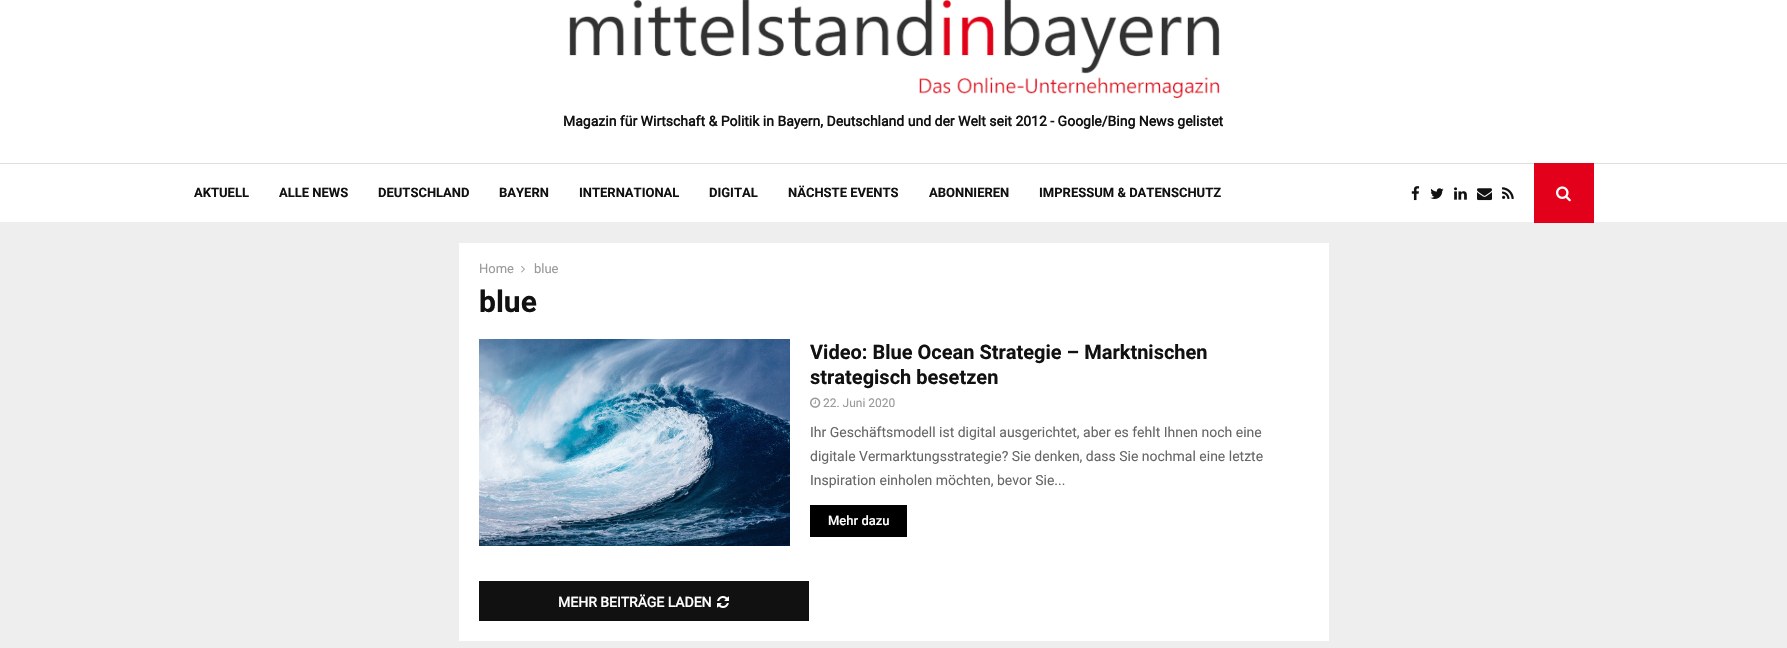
#include "include/core/SkBlurTypes.h"
#include "include/core/SkCanvas.h"
#include "include/core/SkData.h"
#include "include/core/SkFont.h"
#include "include/core/SkFontMgr.h"
#include "include/core/SkImage.h"
#include "include/core/SkMaskFilter.h"
#include "include/core/SkPaint.h"
#include "include/core/SkPathBuilder.h"
#include "include/core/SkTextBlob.h"
#include "include/effects/SkDashPathEffect.h"
#include "include/effects/SkGradientShader.h"
#include "include/utils/SkParsePath.h"

extern sk_sp<SkFontMgr> fontMgr;

static SkFont font(const char* family, int weight, float size, bool italic = false) {
    SkFontStyle style(weight, SkFontStyle::kNormal_Width,
        italic ? SkFontStyle::kItalic_Slant : SkFontStyle::kUpright_Slant);
    SkFont result(fontMgr->matchFamilyStyle(family, style), size);
    result.setSubpixel(true);
    return result;
}

static void drawLabel(SkCanvas* canvas, const char* s, float x, float y, const SkFont& font, SkColor color) {
    SkPaint ink(SkColor4f::FromColor(color));
    ink.setAntiAlias(true);
    canvas->drawString(s, x, y, font, ink);
}

static void fillRect(SkCanvas* canvas, float x, float y, float w, float h, SkColor color) {
    SkPaint ink(SkColor4f::FromColor(color));
    ink.setAntiAlias(true);
    canvas->drawRect(SkRect::MakeXYWH(x, y, w, h), ink);
}

static void drawPhoto(SkCanvas* canvas, const char* path, float x, float y, float w, float h) {
    auto image = SkImages::DeferredFromEncodedData(SkData::MakeFromFileName(path));
    canvas->drawImageRect(image, SkRect::MakeXYWH(x, y, w, h), SkSamplingOptions());
}

void draw(SkCanvas* canvas) {
    SkPaint paint;
    paint.setAntiAlias(true);
    canvas->clear(0xFFEEEEEE);
    fillRect(canvas, 0, 0, 1787, 163, 0xFFFFFFFF);
    drawPhoto(canvas, "assets/img1.png", 569, 0, 651, 99);
    SkFont font1 = font("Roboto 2", 700, 14);
    drawLabel(canvas, "Magazin für Wirtschaft & Politik in Bayern, Deutschland und der Welt seit 2012 - Google/Bing News gelistet", 563, 126, font1, 0xFF111111);
    fillRect(canvas, 0, 164, 1787, 58, 0xFFFFFFFF);
    fillRect(canvas, 0, 163, 1787, 1, 0xFFDEDEDE);
    SkFont font2 = font("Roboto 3", 700, 13);
    drawLabel(canvas, "AKTUELL", 194, 197, font2, 0xFF111111);
    drawLabel(canvas, "ALLE NEWS", 279, 197, font2, 0xFF111111);
    drawLabel(canvas, "DEUTSCHLAND", 378, 197, font2, 0xFF111111);
    drawLabel(canvas, "BAYERN", 499, 197, font2, 0xFF111111);
    drawLabel(canvas, "INTERNATIONAL", 579, 197, font2, 0xFF111111);
    drawLabel(canvas, "DIGITAL", 709, 197, font2, 0xFF111111);
    drawLabel(canvas, "NÄCHSTE EVENTS", 788, 197, font2, 0xFF111111);
    drawLabel(canvas, "ABONNIEREN", 929, 197, font2, 0xFF111111);
    drawLabel(canvas, "IMPRESSUM & DATENSCHUTZ", 1039, 197, font2, 0xFF111111);
    drawPhoto(canvas, "assets/img2.png", 1411, 186, 9, 15);
    drawPhoto(canvas, "assets/img3.png", 1430, 188, 14, 11);
    drawPhoto(canvas, "assets/img4.png", 1454, 187, 13, 13);
    drawPhoto(canvas, "assets/img5.png", 1477, 188, 15, 13);
    drawPhoto(canvas, "assets/img6.png", 1502, 187, 12, 12);
    fillRect(canvas, 1534, 163, 60, 60, 0xFFE2001A);
    drawPhoto(canvas, "assets/img7.png", 1556, 186, 15, 16);
    fillRect(canvas, 459, 243, 870, 398, 0xFFFFFFFF);
    SkFont font3 = font("Roboto", 400, 13);
    drawLabel(canvas, "Home", 479, 273, font3, 0xFF999999);
    drawPhoto(canvas, "assets/img8.png", 521, 265, 4, 8);
    drawLabel(canvas, "blue", 534, 273, font3, 0xFF999999);
    SkFont font4 = font("Roboto", 700, 30);
    drawLabel(canvas, "blue", 479, 312, font4, 0xFF111111);
    drawPhoto(canvas, "assets/img9.png", 479, 339, 311, 207);
    SkFont font5 = font("Roboto", 700, 20);
    drawLabel(canvas, "Video: Blue Ocean Strategie – Marktnischen", 810, 359, font5, 0xFF111111);
    drawLabel(canvas, "strategisch besetzen", 810, 384, font5, 0xFF111111);
    drawPhoto(canvas, "assets/img10.png", 810, 397, 11, 11);
    SkFont font6 = font("Roboto", 400, 12);
    drawLabel(canvas, "22. Juni 2020", 823, 407, font6, 0xFF999999);
    SkFont font7 = font("Roboto", 400, 14);
    drawLabel(canvas, "Ihr Geschäftsmodell ist digital ausgerichtet, aber es fehlt Ihnen noch eine", 810, 437, font7, 0xFF666666);
    drawLabel(canvas, "digitale Vermarktungsstrategie? Sie denken, dass Sie nochmal eine letzte", 810, 461, font7, 0xFF666666);
    drawLabel(canvas, "Inspiration einholen möchten, bevor Sie...", 810, 485, font7, 0xFF666666);
    fillRect(canvas, 810, 505, 97, 32, 0xFF000000);
    SkFont font8 = font("Roboto", 500, 13);
    drawLabel(canvas, "Mehr dazu", 828, 525, font8, 0xFFFFFFFF);
    fillRect(canvas, 479, 581, 330, 40, 0xFF111111);
    drawLabel(canvas, "MEHR BEITRÄGE LADEN", 558, 607, font1, 0xFFFFFFFF);
    drawPhoto(canvas, "assets/img11.png", 717, 596, 12, 12);
}
